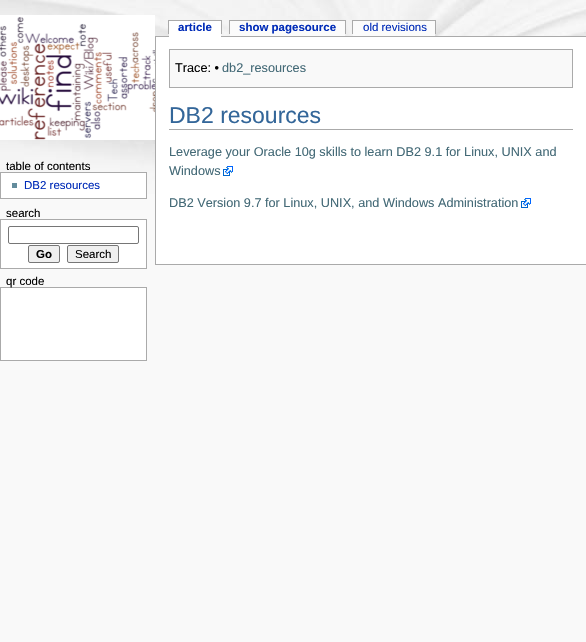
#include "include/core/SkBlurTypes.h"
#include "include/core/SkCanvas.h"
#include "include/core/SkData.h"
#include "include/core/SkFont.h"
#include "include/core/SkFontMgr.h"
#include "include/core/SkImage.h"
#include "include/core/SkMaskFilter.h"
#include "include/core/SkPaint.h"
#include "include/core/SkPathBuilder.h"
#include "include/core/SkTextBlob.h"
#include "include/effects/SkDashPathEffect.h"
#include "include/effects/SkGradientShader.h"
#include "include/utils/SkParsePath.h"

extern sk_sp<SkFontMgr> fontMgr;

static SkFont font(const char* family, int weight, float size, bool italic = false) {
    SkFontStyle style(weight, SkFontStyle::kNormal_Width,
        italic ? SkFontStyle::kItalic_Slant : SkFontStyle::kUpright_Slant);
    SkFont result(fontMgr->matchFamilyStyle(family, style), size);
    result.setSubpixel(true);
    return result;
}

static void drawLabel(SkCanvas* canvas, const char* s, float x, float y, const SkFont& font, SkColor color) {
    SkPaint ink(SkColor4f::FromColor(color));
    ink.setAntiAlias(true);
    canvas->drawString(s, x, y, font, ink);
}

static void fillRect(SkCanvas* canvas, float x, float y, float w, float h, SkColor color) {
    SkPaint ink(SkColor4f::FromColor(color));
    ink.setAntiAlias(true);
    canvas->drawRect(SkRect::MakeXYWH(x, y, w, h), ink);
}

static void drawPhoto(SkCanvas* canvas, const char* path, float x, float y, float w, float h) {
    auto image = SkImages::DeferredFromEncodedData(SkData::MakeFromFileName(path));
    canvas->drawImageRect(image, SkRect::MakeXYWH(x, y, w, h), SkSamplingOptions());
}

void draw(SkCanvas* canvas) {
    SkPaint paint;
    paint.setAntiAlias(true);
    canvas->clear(0xFFF9F9F9);
    drawPhoto(canvas, "assets/img1.png", 0, 0, 586, 194);
    drawPhoto(canvas, "assets/img2.png", 0, 15, 155, 125);
    fillRect(canvas, 155, 36, 431, 1, 0xFFAAAAAA);
    fillRect(canvas, 169, 21, 52, 16, 0xFFFFFFFF);
    SkFont font1 = font("Liberation Sans", 700, 11.5f);
    drawLabel(canvas, "article", 178, 31, font1, 0xFF002BB8);
    fillRect(canvas, 168, 20, 54, 1, 0xFFAAAAAA);
    fillRect(canvas, 221, 20, 1, 14, 0xFFAAAAAA);
    fillRect(canvas, 168, 20, 1, 14, 0xFFAAAAAA);
    fillRect(canvas, 230, 21, 115, 15, 0xFFFBFBFB);
    drawLabel(canvas, "show pagesource", 239, 31, font1, 0xFF002BB8);
    fillRect(canvas, 229, 20, 117, 1, 0xFFAAAAAA);
    fillRect(canvas, 345, 20, 1, 14, 0xFFAAAAAA);
    fillRect(canvas, 229, 20, 1, 14, 0xFFAAAAAA);
    fillRect(canvas, 353, 21, 82, 15, 0xFFFBFBFB);
    SkFont font2 = font("Liberation Sans", 400, 11.5f);
    drawLabel(canvas, "old revisions", 363, 31, font2, 0xFF002BB8);
    fillRect(canvas, 352, 20, 84, 1, 0xFFAAAAAA);
    fillRect(canvas, 435, 20, 1, 14, 0xFFAAAAAA);
    fillRect(canvas, 352, 20, 1, 14, 0xFFAAAAAA);
    drawLabel(canvas, "table of contents", 6, 170, font2, 0xFF000000);
    paint.setColor(0xFFFFFFFF);
    canvas->drawRect(SkRect::MakeXYWH(0.5f, 172.5f, 146, 26), paint);
    paint.setStroke(true);
    paint.setStrokeWidth(1);
    paint.setColor(0xFFAAAAAA);
    canvas->drawRect(SkRect::MakeXYWH(0.5f, 172.5f, 146, 26), paint);
    fillRect(canvas, 12, 183, 5, 5, 0xFF638C9C);
    drawLabel(canvas, "DB2 resources", 24, 189, font2, 0xFF002BB8);
    drawLabel(canvas, "search", 6, 217, font2, 0xFF000000);
    paint.setStroke(false);
    paint.setColor(0xFFFFFFFF);
    canvas->drawRect(SkRect::MakeXYWH(0.5f, 219.5f, 146, 49), paint);
    paint.setStroke(true);
    paint.setColor(0xFFAAAAAA);
    canvas->drawRect(SkRect::MakeXYWH(0.5f, 219.5f, 146, 49), paint);
    paint.setColor(0xFF767676);
    canvas->drawRoundRect(SkRect::MakeXYWH(8.5f, 226.5f, 130, 17), 1.5f, 1.5f, paint);
    paint.setStroke(false);
    paint.setColor(0xFFEFEFEF);
    canvas->drawRoundRect(SkRect::MakeXYWH(28.5f, 245.5f, 31, 17), 1.5f, 1.5f, paint);
    paint.setStroke(true);
    paint.setColor(0xFF767676);
    canvas->drawRoundRect(SkRect::MakeXYWH(28.5f, 245.5f, 31, 17), 1.5f, 1.5f, paint);
    drawLabel(canvas, "Go", 36, 258, font1, 0xFF000000);
    paint.setStroke(false);
    paint.setColor(0xFFEFEFEF);
    canvas->drawRoundRect(SkRect::MakeXYWH(67.5f, 245.5f, 51, 17), 1.5f, 1.5f, paint);
    paint.setStroke(true);
    paint.setColor(0xFF767676);
    canvas->drawRoundRect(SkRect::MakeXYWH(67.5f, 245.5f, 51, 17), 1.5f, 1.5f, paint);
    drawLabel(canvas, "Search", 75, 258, font2, 0xFF000000);
    paint.setStroke(false);
    paint.setColor(0xFFFFFFFF);
    canvas->drawRect(SkRect::MakeXYWH(0.5f, 287.5f, 146, 73), paint);
    paint.setStroke(true);
    paint.setColor(0xFFAAAAAA);
    canvas->drawRect(SkRect::MakeXYWH(0.5f, 287.5f, 146, 73), paint);
    drawLabel(canvas, "qr code", 6, 285, font2, 0xFF000000);
    fillRect(canvas, 156, 37, 430, 227, 0xFFFFFFFF);
    fillRect(canvas, 155, 264, 431, 1, 0xFFAAAAAA);
    fillRect(canvas, 155, 36, 1, 229, 0xFFAAAAAA);
    paint.setStroke(false);
    paint.setColor(0xFFF9F9F9);
    canvas->drawRect(SkRect::MakeXYWH(169.5f, 49.5f, 403, 38), paint);
    paint.setStroke(true);
    paint.setColor(0xFFAAAAAA);
    canvas->drawRect(SkRect::MakeXYWH(169.5f, 49.5f, 403, 38), paint);
    SkFont font3 = font("Liberation Sans", 400, 12.7f);
    drawLabel(canvas, "Trace: •", 175, 72, font3, 0xFF000000);
    drawLabel(canvas, "db2_resources", 222, 72, font3, 0xFF436976);
    fillRect(canvas, 169, 129, 404, 1, 0xFFAAAAAA);
    SkFont font4 = font("Liberation Sans", 400, 23);
    drawLabel(canvas, "DB2 resources", 169, 123, font4, 0xFF336699);
    drawLabel(canvas, "Leverage your Oracle 10g skills to learn DB2 9.1 for Linux, UNIX and", 169, 156, font3, 0xFF436976);
    drawLabel(canvas, "Windows", 169, 175, font3, 0xFF436976);
    drawPhoto(canvas, "assets/img3.png", 223, 166, 10, 10);
    drawLabel(canvas, "DB2 Version 9.7 for Linux, UNIX, and Windows Administration", 169, 207, font3, 0xFF436976);
    drawPhoto(canvas, "assets/img3.png", 521, 198, 10, 10);
}
